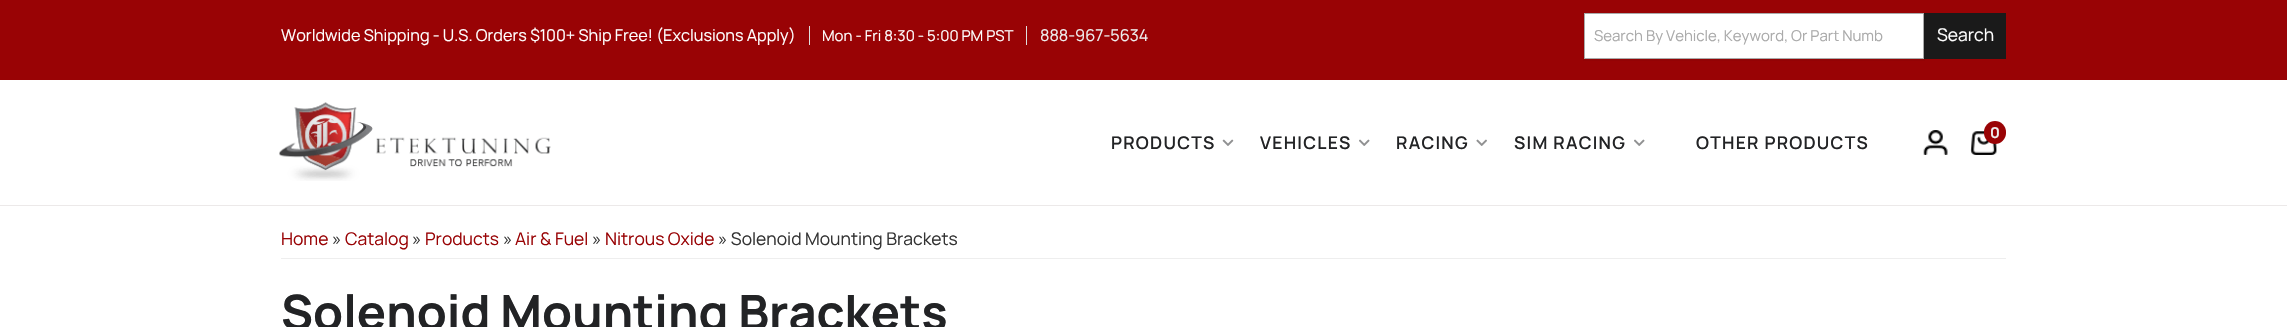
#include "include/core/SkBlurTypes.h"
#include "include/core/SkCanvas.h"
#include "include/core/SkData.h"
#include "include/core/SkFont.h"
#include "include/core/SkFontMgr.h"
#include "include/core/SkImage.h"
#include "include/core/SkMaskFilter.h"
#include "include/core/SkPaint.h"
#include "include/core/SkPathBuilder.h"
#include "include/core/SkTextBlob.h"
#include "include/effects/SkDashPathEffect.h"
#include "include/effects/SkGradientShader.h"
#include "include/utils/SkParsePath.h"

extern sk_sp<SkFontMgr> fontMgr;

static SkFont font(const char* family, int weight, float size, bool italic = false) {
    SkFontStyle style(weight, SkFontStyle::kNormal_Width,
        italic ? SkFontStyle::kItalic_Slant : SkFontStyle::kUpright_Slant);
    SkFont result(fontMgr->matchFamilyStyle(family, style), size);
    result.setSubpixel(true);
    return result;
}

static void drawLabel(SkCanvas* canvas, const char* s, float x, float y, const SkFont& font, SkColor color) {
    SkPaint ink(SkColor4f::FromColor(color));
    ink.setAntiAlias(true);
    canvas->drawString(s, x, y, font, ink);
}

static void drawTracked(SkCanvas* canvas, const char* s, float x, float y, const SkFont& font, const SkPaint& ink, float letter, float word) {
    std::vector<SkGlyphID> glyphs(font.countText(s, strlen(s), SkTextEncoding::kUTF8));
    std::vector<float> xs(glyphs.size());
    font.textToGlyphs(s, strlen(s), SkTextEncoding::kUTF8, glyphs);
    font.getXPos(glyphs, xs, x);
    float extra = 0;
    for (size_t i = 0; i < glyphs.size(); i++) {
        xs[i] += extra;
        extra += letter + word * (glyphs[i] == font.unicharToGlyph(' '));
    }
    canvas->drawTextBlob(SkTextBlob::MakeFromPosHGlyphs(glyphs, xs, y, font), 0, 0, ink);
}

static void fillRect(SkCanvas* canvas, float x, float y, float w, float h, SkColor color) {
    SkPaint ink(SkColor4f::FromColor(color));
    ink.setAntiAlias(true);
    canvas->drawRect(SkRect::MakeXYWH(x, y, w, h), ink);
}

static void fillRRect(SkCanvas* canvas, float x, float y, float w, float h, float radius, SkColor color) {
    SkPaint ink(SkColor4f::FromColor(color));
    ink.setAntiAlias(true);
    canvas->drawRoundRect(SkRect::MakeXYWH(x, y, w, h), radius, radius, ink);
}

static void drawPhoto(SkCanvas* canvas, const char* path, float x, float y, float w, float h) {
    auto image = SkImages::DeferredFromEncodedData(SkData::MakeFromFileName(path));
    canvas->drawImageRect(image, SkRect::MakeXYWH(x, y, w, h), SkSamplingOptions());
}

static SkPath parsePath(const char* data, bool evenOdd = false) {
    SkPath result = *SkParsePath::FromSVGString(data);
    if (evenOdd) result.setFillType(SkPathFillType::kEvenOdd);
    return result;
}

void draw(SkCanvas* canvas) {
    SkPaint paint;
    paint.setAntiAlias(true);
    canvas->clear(0xFFFFFFFF);
    fillRect(canvas, 0, 205, 2287, 1, 0xFFECE9E9);
    fillRect(canvas, 0, 0, 2287, 80, 0xFF990305);
    fillRect(canvas, 809, 26, 1, 19, 0xFFDEDEDE);
    SkFont font1 = font("Manrope", 200, 16.25f);
    drawLabel(canvas, "Worldwide Shipping - U.S. Orders $100+ Ship Free! (Exclusions Apply)", 281, 41, font1, 0xFFFFFFFF);
    fillRect(canvas, 1026, 26, 1, 19, 0xFFDEDEDE);
    SkFont font2 = font("Manrope", 200, 15);
    drawLabel(canvas, "Mon - Fri 8:30 - 5:00 PM PST", 822, 41, font2, 0xFFFFFFFF);
    drawLabel(canvas, "888-967-5634", 1040, 41, font1, 0xFFEEEEEE);
    fillRect(canvas, 1924, 13, 82, 46, 0xFF1A1A1A);
    paint.setColor(0x0A000000);
    canvas->drawPath(parsePath("M1583 13V61H1925V13H1924V59H1584V13Z"), paint);
    paint.setStroke(true);
    paint.setStrokeWidth(1);
    paint.setColor(0xFFAAAAAA);
    canvas->drawRect(SkRect::MakeXYWH(1584.5f, 13.5f, 339, 45), paint);
    fillRect(canvas, 1585, 14, 338, 44, 0xFFFFFFFF);
    drawLabel(canvas, "Search By Vehicle, Keyword, Or Part Numb", 1594, 41, font2, 0xFFAAAAAA);
    SkFont font3 = font("Manrope", 200, 17.5f);
    drawLabel(canvas, "Search", 1937, 41, font3, 0xFFFFFFFF);
    drawPhoto(canvas, "assets/img1.png", 279, 102, 272, 79);
    drawPhoto(canvas, "assets/img2.png", 1923, 130, 25, 25);
    drawPhoto(canvas, "assets/img3.png", 1970, 131, 27, 24);
    fillRRect(canvas, 1984, 121, 22, 23, 11, 0xFF990305);
    SkFont font4 = font("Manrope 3", 200, 15);
    drawLabel(canvas, "0", 1990, 138, font4, 0xFFEEEEEE);
    SkFont font5 = font("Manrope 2", 200, 17.5f);
    paint.setStroke(false);
    paint.setColor(0xFF222325);
    drawTracked(canvas, "PRODUCTS", 1111, 149, font5, paint, 1.25f, 0);
    drawPhoto(canvas, "assets/img4.png", 1222, 139, 12, 7);
    drawTracked(canvas, "VEHICLES", 1260, 149, font5, paint, 1.25f, 0);
    drawPhoto(canvas, "assets/img5.png", 1359, 139, 11, 7);
    drawTracked(canvas, "RACING", 1396, 149, font5, paint, 1.25f, 0);
    drawPhoto(canvas, "assets/img6.png", 1476, 139, 11, 7);
    drawTracked(canvas, "SIM RACING", 1514, 149, font5, paint, 1.25f, 0);
    drawPhoto(canvas, "assets/img5.png", 1634, 139, 11, 7);
    drawTracked(canvas, "OTHER PRODUCTS", 1696, 149, font5, paint, 1.25f, 0);
    fillRect(canvas, 281, 258, 1725, 1, 0xFFEEEEEE);
    drawLabel(canvas, "Home", 281, 245, font3, 0xFF990305);
    drawLabel(canvas, "»", 332, 245, font3, 0xFF333333);
    drawLabel(canvas, "Catalog", 345, 245, font3, 0xFF990305);
    drawLabel(canvas, "»", 412, 245, font3, 0xFF333333);
    drawLabel(canvas, "Products", 425, 245, font3, 0xFF990305);
    drawLabel(canvas, "»", 503, 245, font3, 0xFF333333);
    drawLabel(canvas, "Air & Fuel", 515, 245, font3, 0xFF990305);
    drawLabel(canvas, "»", 592, 245, font3, 0xFF333333);
    drawLabel(canvas, "Nitrous Oxide", 605, 245, font3, 0xFF990305);
    drawLabel(canvas, "» Solenoid Mounting Brackets", 718, 245, font3, 0xFF333333);
    SkFont font6 = font("Manrope 3", 200, 48.75f);
    drawLabel(canvas, "Solenoid Mounting Brackets", 281, 330, font6, 0xFF222325);
}
